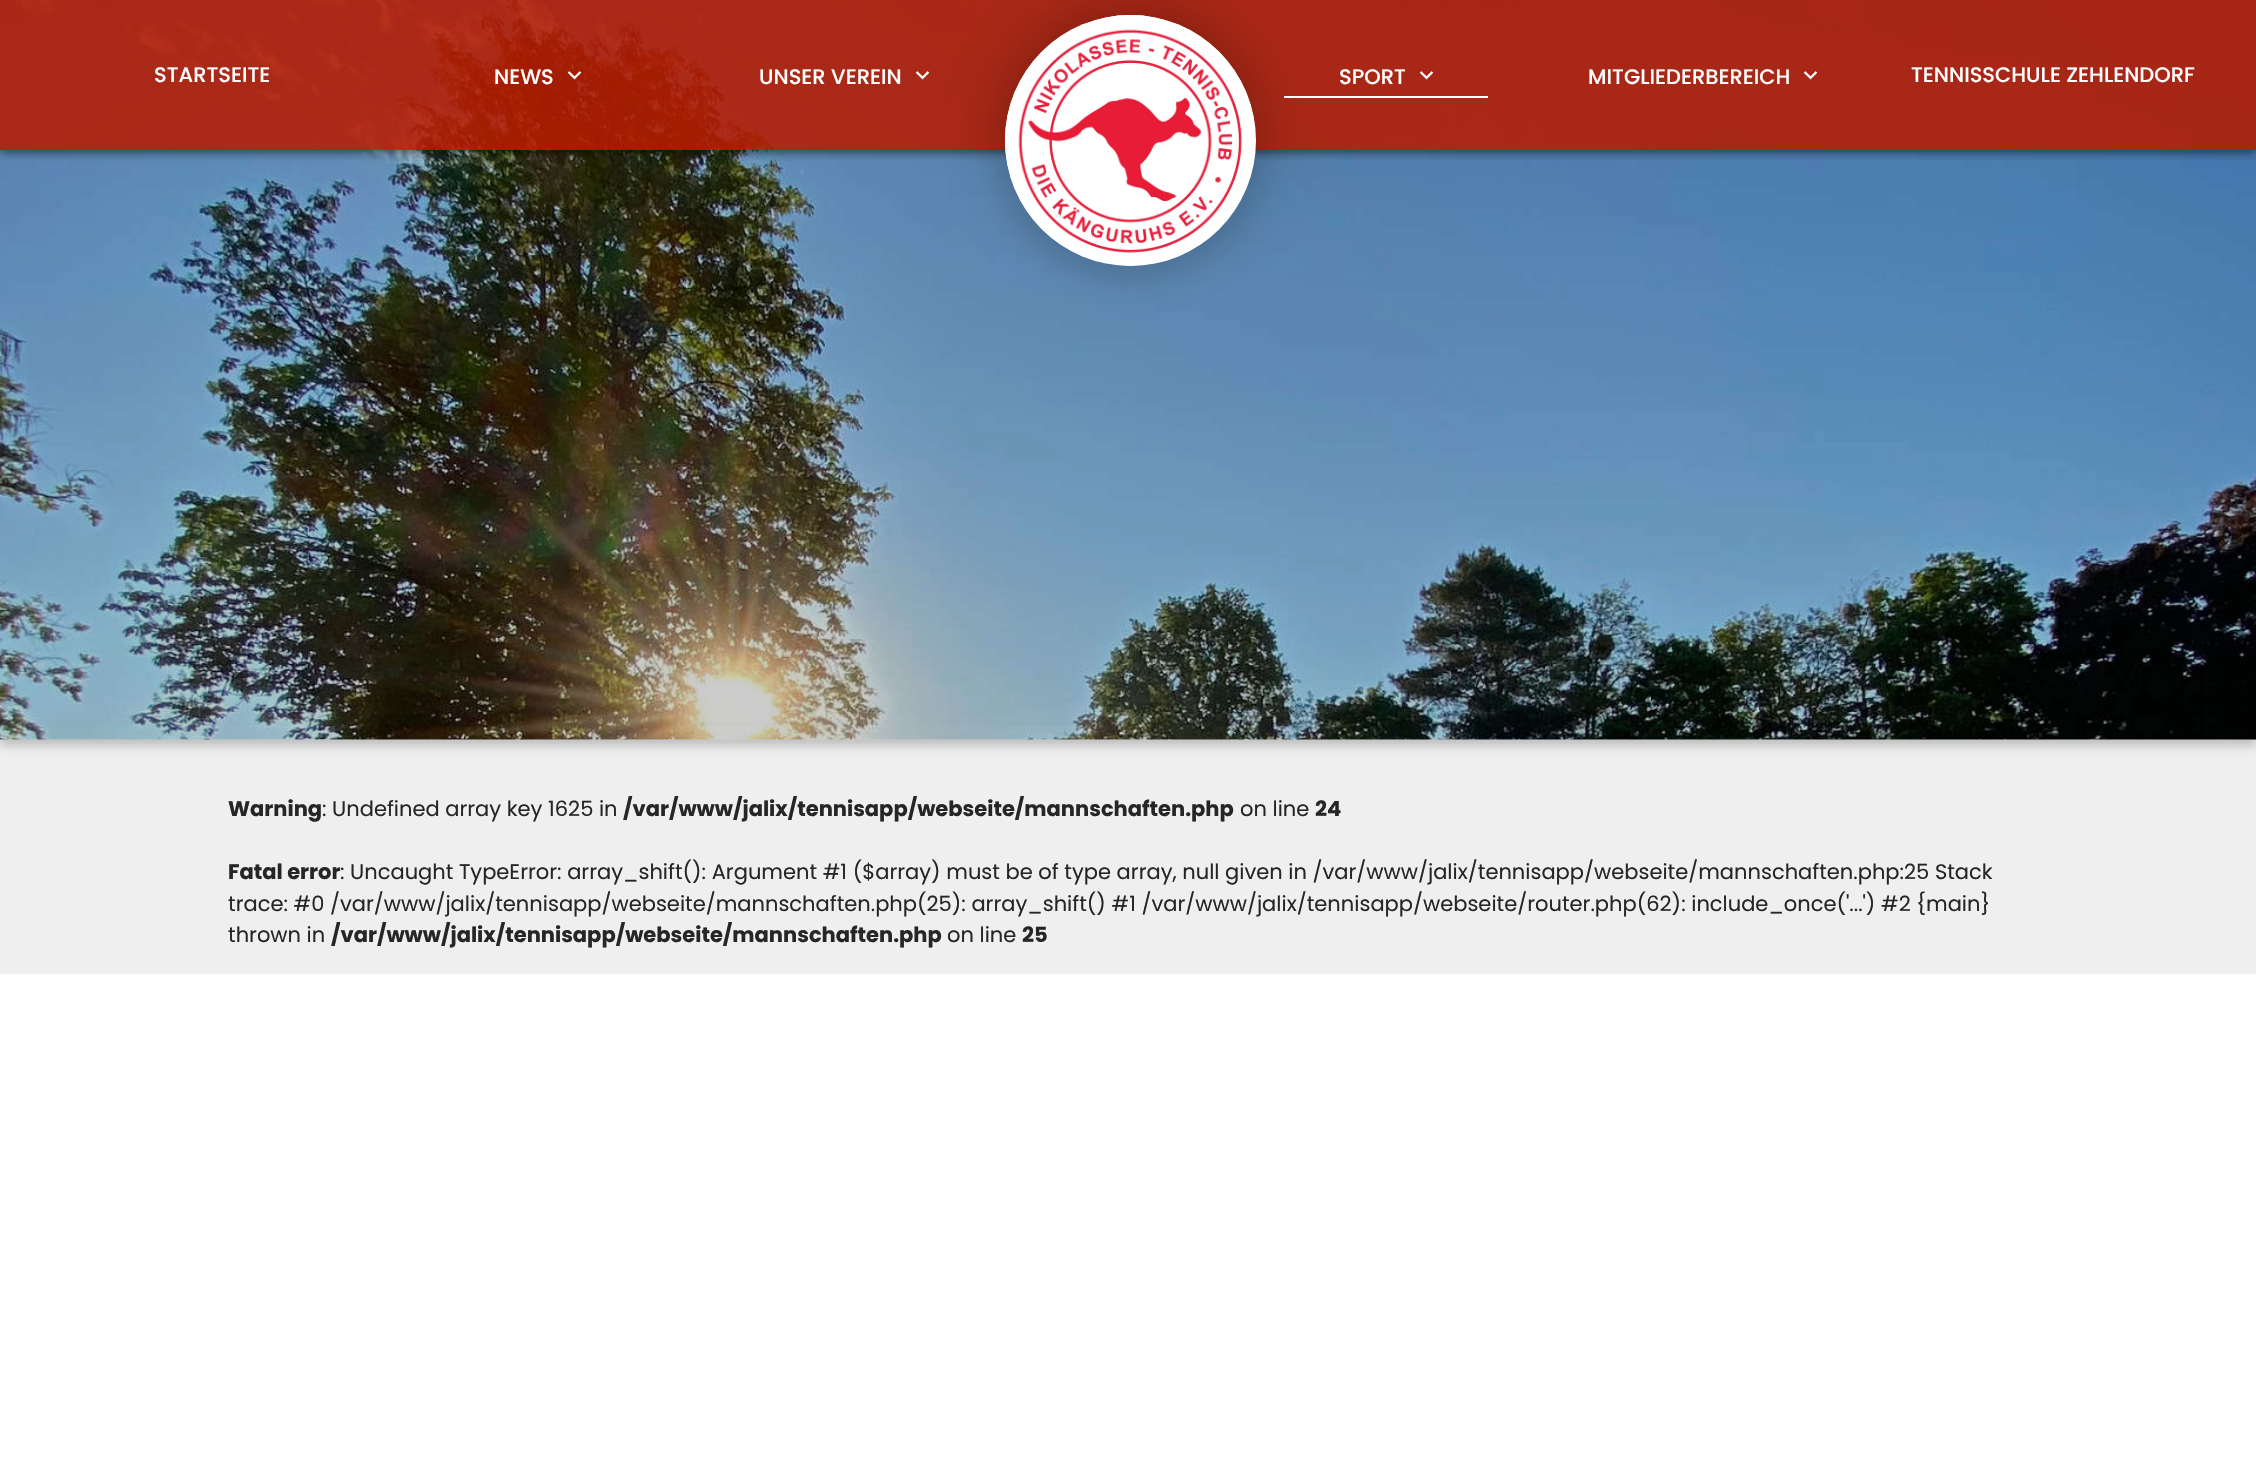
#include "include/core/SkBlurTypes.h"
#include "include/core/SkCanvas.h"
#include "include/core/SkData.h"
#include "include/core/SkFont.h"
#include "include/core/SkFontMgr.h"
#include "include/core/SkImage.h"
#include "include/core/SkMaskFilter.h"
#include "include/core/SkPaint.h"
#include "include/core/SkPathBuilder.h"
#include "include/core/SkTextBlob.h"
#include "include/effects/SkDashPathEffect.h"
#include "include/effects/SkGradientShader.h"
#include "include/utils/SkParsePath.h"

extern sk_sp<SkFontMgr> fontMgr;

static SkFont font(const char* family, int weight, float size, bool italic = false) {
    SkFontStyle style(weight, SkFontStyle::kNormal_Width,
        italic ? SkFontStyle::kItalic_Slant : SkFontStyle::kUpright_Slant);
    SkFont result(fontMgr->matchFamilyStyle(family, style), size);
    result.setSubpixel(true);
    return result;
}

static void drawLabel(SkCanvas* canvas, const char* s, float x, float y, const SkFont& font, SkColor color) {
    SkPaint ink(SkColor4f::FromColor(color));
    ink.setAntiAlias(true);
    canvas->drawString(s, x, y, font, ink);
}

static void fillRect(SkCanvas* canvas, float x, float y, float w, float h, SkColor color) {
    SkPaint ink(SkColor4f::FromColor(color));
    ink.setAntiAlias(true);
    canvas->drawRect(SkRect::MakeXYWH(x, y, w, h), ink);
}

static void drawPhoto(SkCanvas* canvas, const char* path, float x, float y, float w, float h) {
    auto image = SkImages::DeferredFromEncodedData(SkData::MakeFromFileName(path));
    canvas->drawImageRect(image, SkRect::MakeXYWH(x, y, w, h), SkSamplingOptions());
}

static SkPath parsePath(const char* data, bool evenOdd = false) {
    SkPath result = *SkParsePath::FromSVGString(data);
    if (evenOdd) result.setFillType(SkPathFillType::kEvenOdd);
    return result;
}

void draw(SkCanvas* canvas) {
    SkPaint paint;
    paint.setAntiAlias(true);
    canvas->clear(0xFFFFFFFF);
    fillRect(canvas, 0, 739, 2256, 1, 0xFFCCCCCC);
    drawPhoto(canvas, "assets/img1.png", 0, 0, 2256, 740);
    canvas->save();
    canvas->clipRect(SkRect::MakeXYWH(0, 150, 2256, 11));
    paint.setColor(0x80000000);
    paint.setMaskFilter(SkMaskFilter::MakeBlur(kNormal_SkBlurStyle, 4.5f));
    canvas->drawRect(SkRect::MakeXYWH(0, 3, 2256, 150), paint);
    paint.setMaskFilter(nullptr);
    canvas->restore();
    fillRect(canvas, 0, 0, 2256, 150, 0xDEB51A00);
    SkFont font1 = font("Poppins", 500, 21);
    drawLabel(canvas, "STARTSEITE", 154, 82, font1, 0xFFFFFFFF);
    drawLabel(canvas, "NEWS", 494, 84, font1, 0xFFFFFFFF);
    drawPhoto(canvas, "assets/img2.png", 567, 71, 15, 9);
    drawLabel(canvas, "UNSER VEREIN", 759, 84, font1, 0xFFFFFFFF);
    drawPhoto(canvas, "assets/img3.png", 915, 71, 15, 9);
    paint.setColor(0x33000000);
    paint.setMaskFilter(SkMaskFilter::MakeBlur(kNormal_SkBlurStyle, 22.5f));
    canvas->drawRoundRect(SkRect::MakeXYWH(995, 5, 271, 271), 135.5f, 135.5f, paint);
    paint.setMaskFilter(nullptr);
    paint.setColor(0xFFFFFFFF);
    canvas->drawCircle(1130.5f, 140.5f, 125.5f, paint);
    drawPhoto(canvas, "assets/img4.png", 1005, 15, 250, 251);
    drawLabel(canvas, "SPORT", 1339, 84, font1, 0xFFFFFFFF);
    drawPhoto(canvas, "assets/img5.png", 1419, 71, 15, 9);
    fillRect(canvas, 1284, 96, 204, 2, 0xFFFFFFFF);
    drawLabel(canvas, "MITGLIEDERBEREICH", 1588, 84, font1, 0xFFFFFFFF);
    drawPhoto(canvas, "assets/img6.png", 1803, 71, 15, 9);
    drawLabel(canvas, "TENNISSCHULE ZEHLENDORF", 1911, 82, font1, 0xFFFFFFFF);
    fillRect(canvas, 0, 740, 2256, 234, 0xFFEFEFEF);
    canvas->save();
    canvas->clipPath(parsePath("M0 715H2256V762H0ZM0 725H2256V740H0Z", true), true);
    paint.setColor(0x33000000);
    paint.setMaskFilter(SkMaskFilter::MakeBlur(kNormal_SkBlurStyle, 5));
    canvas->drawRect(SkRect::MakeXYWH(0, 731, 2256, 15), paint);
    paint.setMaskFilter(nullptr);
    canvas->restore();
    SkFont font2 = font("Poppins", 700, 21);
    drawLabel(canvas, "Warning", 228, 816, font2, 0xFF262629);
    SkFont font3 = font("Poppins", 400, 21);
    drawLabel(canvas, ": Undefined array key 1625 in", 322, 816, font3, 0xFF262629);
    drawLabel(canvas, "/var/www/jalix/tennisapp/webseite/mannschaften.php", 623, 816, font2, 0xFF262629);
    drawLabel(canvas, "on line", 1240, 816, font3, 0xFF262629);
    drawLabel(canvas, "24", 1315, 816, font2, 0xFF262629);
    drawLabel(canvas, "Fatal error", 228, 879, font2, 0xFF262629);
    drawLabel(canvas, ": Uncaught TypeError: array_shift(): Argument #1 ($array) must be of type array, null given in /var/www/jalix/tennisapp/webseite/mannschaften.php:25 Stack", 340, 879, font3, 0xFF262629);
    drawLabel(canvas, "trace: #0 /var/www/jalix/tennisapp/webseite/mannschaften.php(25): array_shift() #1 /var/www/jalix/tennisapp/webseite/router.php(62): include_once('...') #2 {main}", 228, 911, font3, 0xFF262629);
    drawLabel(canvas, "thrown in", 228, 942, font3, 0xFF262629);
    drawLabel(canvas, "/var/www/jalix/tennisapp/webseite/mannschaften.php", 331, 942, font2, 0xFF262629);
    drawLabel(canvas, "on line", 947, 942, font3, 0xFF262629);
    drawLabel(canvas, "25", 1022, 942, font2, 0xFF262629);
}
